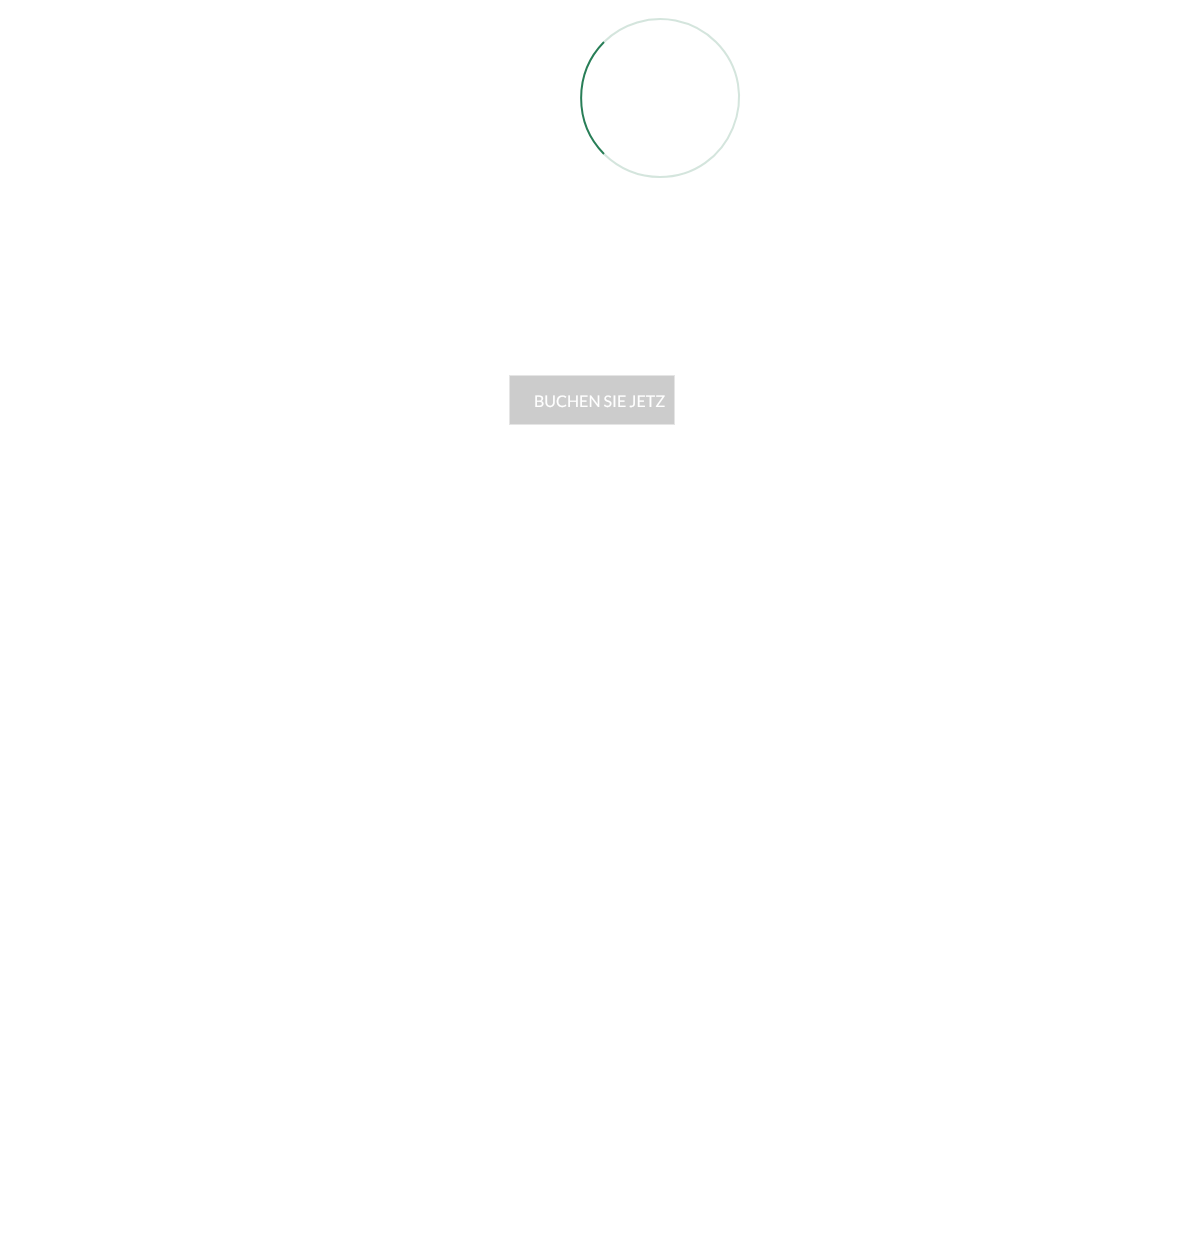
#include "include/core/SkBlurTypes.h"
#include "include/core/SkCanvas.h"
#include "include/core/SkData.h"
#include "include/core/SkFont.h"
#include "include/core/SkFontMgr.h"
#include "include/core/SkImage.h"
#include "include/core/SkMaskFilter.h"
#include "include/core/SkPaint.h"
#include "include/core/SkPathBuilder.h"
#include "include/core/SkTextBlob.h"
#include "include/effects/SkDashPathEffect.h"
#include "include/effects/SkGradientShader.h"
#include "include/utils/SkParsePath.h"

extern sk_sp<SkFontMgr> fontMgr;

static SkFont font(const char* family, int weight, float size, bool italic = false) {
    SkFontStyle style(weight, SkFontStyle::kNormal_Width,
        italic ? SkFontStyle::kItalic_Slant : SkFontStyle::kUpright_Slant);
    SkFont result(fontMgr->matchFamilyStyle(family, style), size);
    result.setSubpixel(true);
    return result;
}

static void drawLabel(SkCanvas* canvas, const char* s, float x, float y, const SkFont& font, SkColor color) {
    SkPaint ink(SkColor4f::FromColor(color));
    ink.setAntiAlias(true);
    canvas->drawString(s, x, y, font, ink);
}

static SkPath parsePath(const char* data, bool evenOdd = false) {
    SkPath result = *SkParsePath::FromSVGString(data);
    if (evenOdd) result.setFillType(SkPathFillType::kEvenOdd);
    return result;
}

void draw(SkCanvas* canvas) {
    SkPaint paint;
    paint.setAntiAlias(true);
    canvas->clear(0xFFFFFFFF);
    paint.setStroke(true);
    paint.setStrokeWidth(2);
    paint.setColor(0xFFD4E5DD);
    canvas->drawPath(parsePath("M604 42C622.5 23.5 650 15.5 675.5 20.5C690.5 23.5 705 31 716 42C765.5 91.5 730 177 660 177C639 177 619 168.5 604 154"), paint);
    paint.setColor(0xFF287E57);
    canvas->drawPath(parsePath("M604 154C573.5 123 573.5 73 604 42"), paint);
    paint.setStroke(false);
    paint.setColor(0xFFCCCCCC);
    canvas->drawRect(SkRect::MakeXYWH(509.5f, 375.5f, 165, 49), paint);
    paint.setStroke(true);
    paint.setStrokeWidth(1);
    paint.setColor(0xFFE5E5E5);
    canvas->drawRect(SkRect::MakeXYWH(509.5f, 375.5f, 165, 49), paint);
    SkFont font1 = font("Lato", 400, 16);
    drawLabel(canvas, "BUCHEN SIE JETZ", 534, 407, font1, 0xFFFFFFFF);
}
